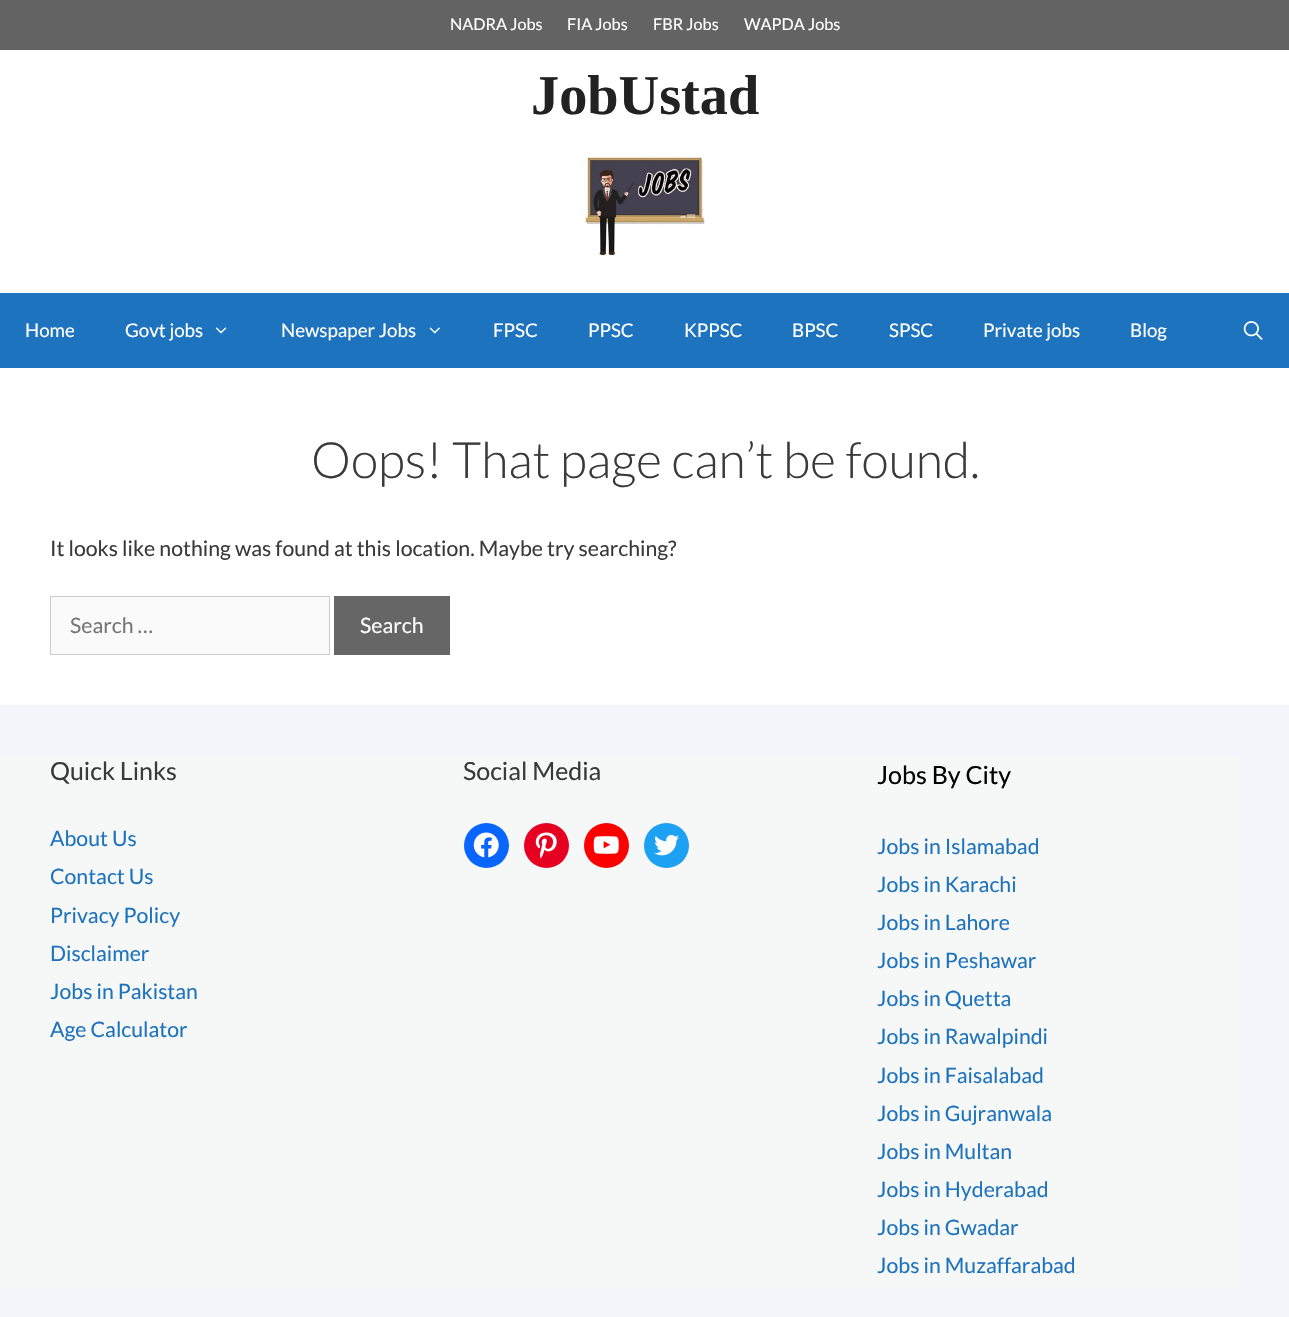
#include "include/core/SkBlurTypes.h"
#include "include/core/SkCanvas.h"
#include "include/core/SkData.h"
#include "include/core/SkFont.h"
#include "include/core/SkFontMgr.h"
#include "include/core/SkImage.h"
#include "include/core/SkMaskFilter.h"
#include "include/core/SkPaint.h"
#include "include/core/SkPathBuilder.h"
#include "include/core/SkTextBlob.h"
#include "include/effects/SkDashPathEffect.h"
#include "include/effects/SkGradientShader.h"
#include "include/utils/SkParsePath.h"

extern sk_sp<SkFontMgr> fontMgr;

static SkFont font(const char* family, int weight, float size, bool italic = false) {
    SkFontStyle style(weight, SkFontStyle::kNormal_Width,
        italic ? SkFontStyle::kItalic_Slant : SkFontStyle::kUpright_Slant);
    SkFont result(fontMgr->matchFamilyStyle(family, style), size);
    result.setSubpixel(true);
    return result;
}

static void drawLabel(SkCanvas* canvas, const char* s, float x, float y, const SkFont& font, SkColor color) {
    SkPaint ink(SkColor4f::FromColor(color));
    ink.setAntiAlias(true);
    canvas->drawString(s, x, y, font, ink);
}

static void fillRect(SkCanvas* canvas, float x, float y, float w, float h, SkColor color) {
    SkPaint ink(SkColor4f::FromColor(color));
    ink.setAntiAlias(true);
    canvas->drawRect(SkRect::MakeXYWH(x, y, w, h), ink);
}

static void drawPhoto(SkCanvas* canvas, const char* path, float x, float y, float w, float h) {
    auto image = SkImages::DeferredFromEncodedData(SkData::MakeFromFileName(path));
    canvas->drawImageRect(image, SkRect::MakeXYWH(x, y, w, h), SkSamplingOptions());
}

void draw(SkCanvas* canvas) {
    SkPaint paint;
    paint.setAntiAlias(true);
    canvas->clear(0xFFFFFFFF);
    fillRect(canvas, 0, 0, 1289, 50, 0xFF636363);
    SkFont font1 = font("Lato", 400, 16.25f);
    drawLabel(canvas, "NADRA Jobs", 450, 30, font1, 0xFFFFFFFF);
    drawLabel(canvas, "FIA Jobs", 567, 30, font1, 0xFFFFFFFF);
    drawLabel(canvas, "FBR Jobs", 653, 30, font1, 0xFFFFFFFF);
    drawLabel(canvas, "WAPDA Jobs", 744, 30, font1, 0xFFFFFFFF);
    SkFont font2 = font("Liberation Serif", 700, 56.25f);
    drawLabel(canvas, "JobUstad", 531, 114, font2, 0xFF222222);
    drawPhoto(canvas, "assets/img1.png", 585, 157, 120, 99);
    fillRect(canvas, 0, 293, 1289, 75, 0xFF1E73BE);
    SkFont font3 = font("Lato", 400, 18.75f);
    drawLabel(canvas, "Home", 25, 337, font3, 0xFFFFFFFF);
    drawLabel(canvas, "Govt jobs", 125, 337, font3, 0xFFFFFFFF);
    drawPhoto(canvas, "assets/img2.png", 215, 327, 12, 7);
    drawLabel(canvas, "Newspaper Jobs", 281, 337, font3, 0xFFFFFFFF);
    drawPhoto(canvas, "assets/img3.png", 429, 327, 11, 7);
    drawLabel(canvas, "FPSC", 493, 337, font3, 0xFFFFFFFF);
    drawLabel(canvas, "PPSC", 588, 337, font3, 0xFFFFFFFF);
    drawLabel(canvas, "KPPSC", 684, 337, font3, 0xFFFFFFFF);
    drawLabel(canvas, "BPSC", 792, 337, font3, 0xFFFFFFFF);
    drawLabel(canvas, "SPSC", 889, 337, font3, 0xFFFFFFFF);
    drawLabel(canvas, "Private jobs", 983, 337, font3, 0xFFFFFFFF);
    drawLabel(canvas, "Blog", 1130, 337, font3, 0xFFFFFFFF);
    drawPhoto(canvas, "assets/img4.png", 1243, 321, 20, 19);
    SkFont font4 = font("Lato", 300, 50);
    drawLabel(canvas, "Oops! That page can’t be found.", 311, 478, font4, 0xFF3A3A3A);
    SkFont font5 = font("Lato", 400, 21.25f);
    drawLabel(canvas, "It looks like nothing was found at this location. Maybe try searching?", 50, 556, font5, 0xFF3A3A3A);
    paint.setColor(0xFFFAFAFA);
    canvas->drawRect(SkRect::MakeXYWH(50.5f, 596.5f, 279, 58), paint);
    paint.setStroke(true);
    paint.setStrokeWidth(1);
    paint.setColor(0xFFCCCCCC);
    canvas->drawRect(SkRect::MakeXYWH(50.5f, 596.5f, 279, 58), paint);
    drawLabel(canvas, "Search …", 70, 633, font5, 0xFF757575);
    fillRect(canvas, 334, 596, 116, 59, 0xFF666666);
    drawLabel(canvas, "Search", 360, 633, font5, 0xFFFFFFFF);
    fillRect(canvas, 0, 705, 1289, 612, 0xFFF4F4FB);
    fillRect(canvas, 0, 755, 1240, 533, 0xFFF6F7F7);
    SkFont font6 = font("Lato", 400, 25);
    drawLabel(canvas, "Quick Links", 50, 780, font6, 0xFF3A3A3A);
    drawLabel(canvas, "About Us", 50, 846, font5, 0xFF1E73BE);
    drawLabel(canvas, "Contact Us", 50, 884, font5, 0xFF1E73BE);
    drawLabel(canvas, "Privacy Policy", 50, 923, font5, 0xFF1E73BE);
    drawLabel(canvas, "Disclaimer", 50, 961, font5, 0xFF1E73BE);
    drawLabel(canvas, "Jobs in Pakistan", 50, 999, font5, 0xFF1E73BE);
    drawLabel(canvas, "Age Calculator", 50, 1037, font5, 0xFF1E73BE);
    drawLabel(canvas, "Social Media", 463, 780, font6, 0xFF3A3A3A);
    paint.setStroke(false);
    paint.setColor(0xFF0866FF);
    canvas->drawCircle(486.5f, 845.5f, 22.5f, paint);
    drawPhoto(canvas, "assets/img5.png", 473, 832, 26, 26);
    paint.setColor(0xFFE60122);
    canvas->drawCircle(546.5f, 845.5f, 22.5f, paint);
    drawPhoto(canvas, "assets/img6.png", 535, 832, 22, 27);
    paint.setColor(0xFFFF0000);
    canvas->drawCircle(606.5f, 845.5f, 22.5f, paint);
    drawPhoto(canvas, "assets/img7.png", 593, 836, 26, 18);
    paint.setColor(0xFF1DA1F2);
    canvas->drawCircle(666.5f, 845.5f, 22.5f, paint);
    drawPhoto(canvas, "assets/img8.png", 654, 835, 25, 21);
    drawLabel(canvas, "Jobs By City", 877, 784, font6, 0xFF000000);
    drawLabel(canvas, "Jobs in Islamabad", 877, 854, font5, 0xFF1E73BE);
    drawLabel(canvas, "Jobs in Karachi", 877, 892, font5, 0xFF1E73BE);
    drawLabel(canvas, "Jobs in Lahore", 877, 930, font5, 0xFF1E73BE);
    drawLabel(canvas, "Jobs in Peshawar", 877, 968, font5, 0xFF1E73BE);
    drawLabel(canvas, "Jobs in Quetta", 877, 1006, font5, 0xFF1E73BE);
    drawLabel(canvas, "Jobs in Rawalpindi", 877, 1044, font5, 0xFF1E73BE);
    drawLabel(canvas, "Jobs in Faisalabad", 877, 1083, font5, 0xFF1E73BE);
    drawLabel(canvas, "Jobs in Gujranwala", 877, 1121, font5, 0xFF1E73BE);
    drawLabel(canvas, "Jobs in Multan", 877, 1159, font5, 0xFF1E73BE);
    drawLabel(canvas, "Jobs in Hyderabad", 877, 1197, font5, 0xFF1E73BE);
    drawLabel(canvas, "Jobs in Gwadar", 877, 1235, font5, 0xFF1E73BE);
    drawLabel(canvas, "Jobs in Muzaffarabad", 877, 1273, font5, 0xFF1E73BE);
}
